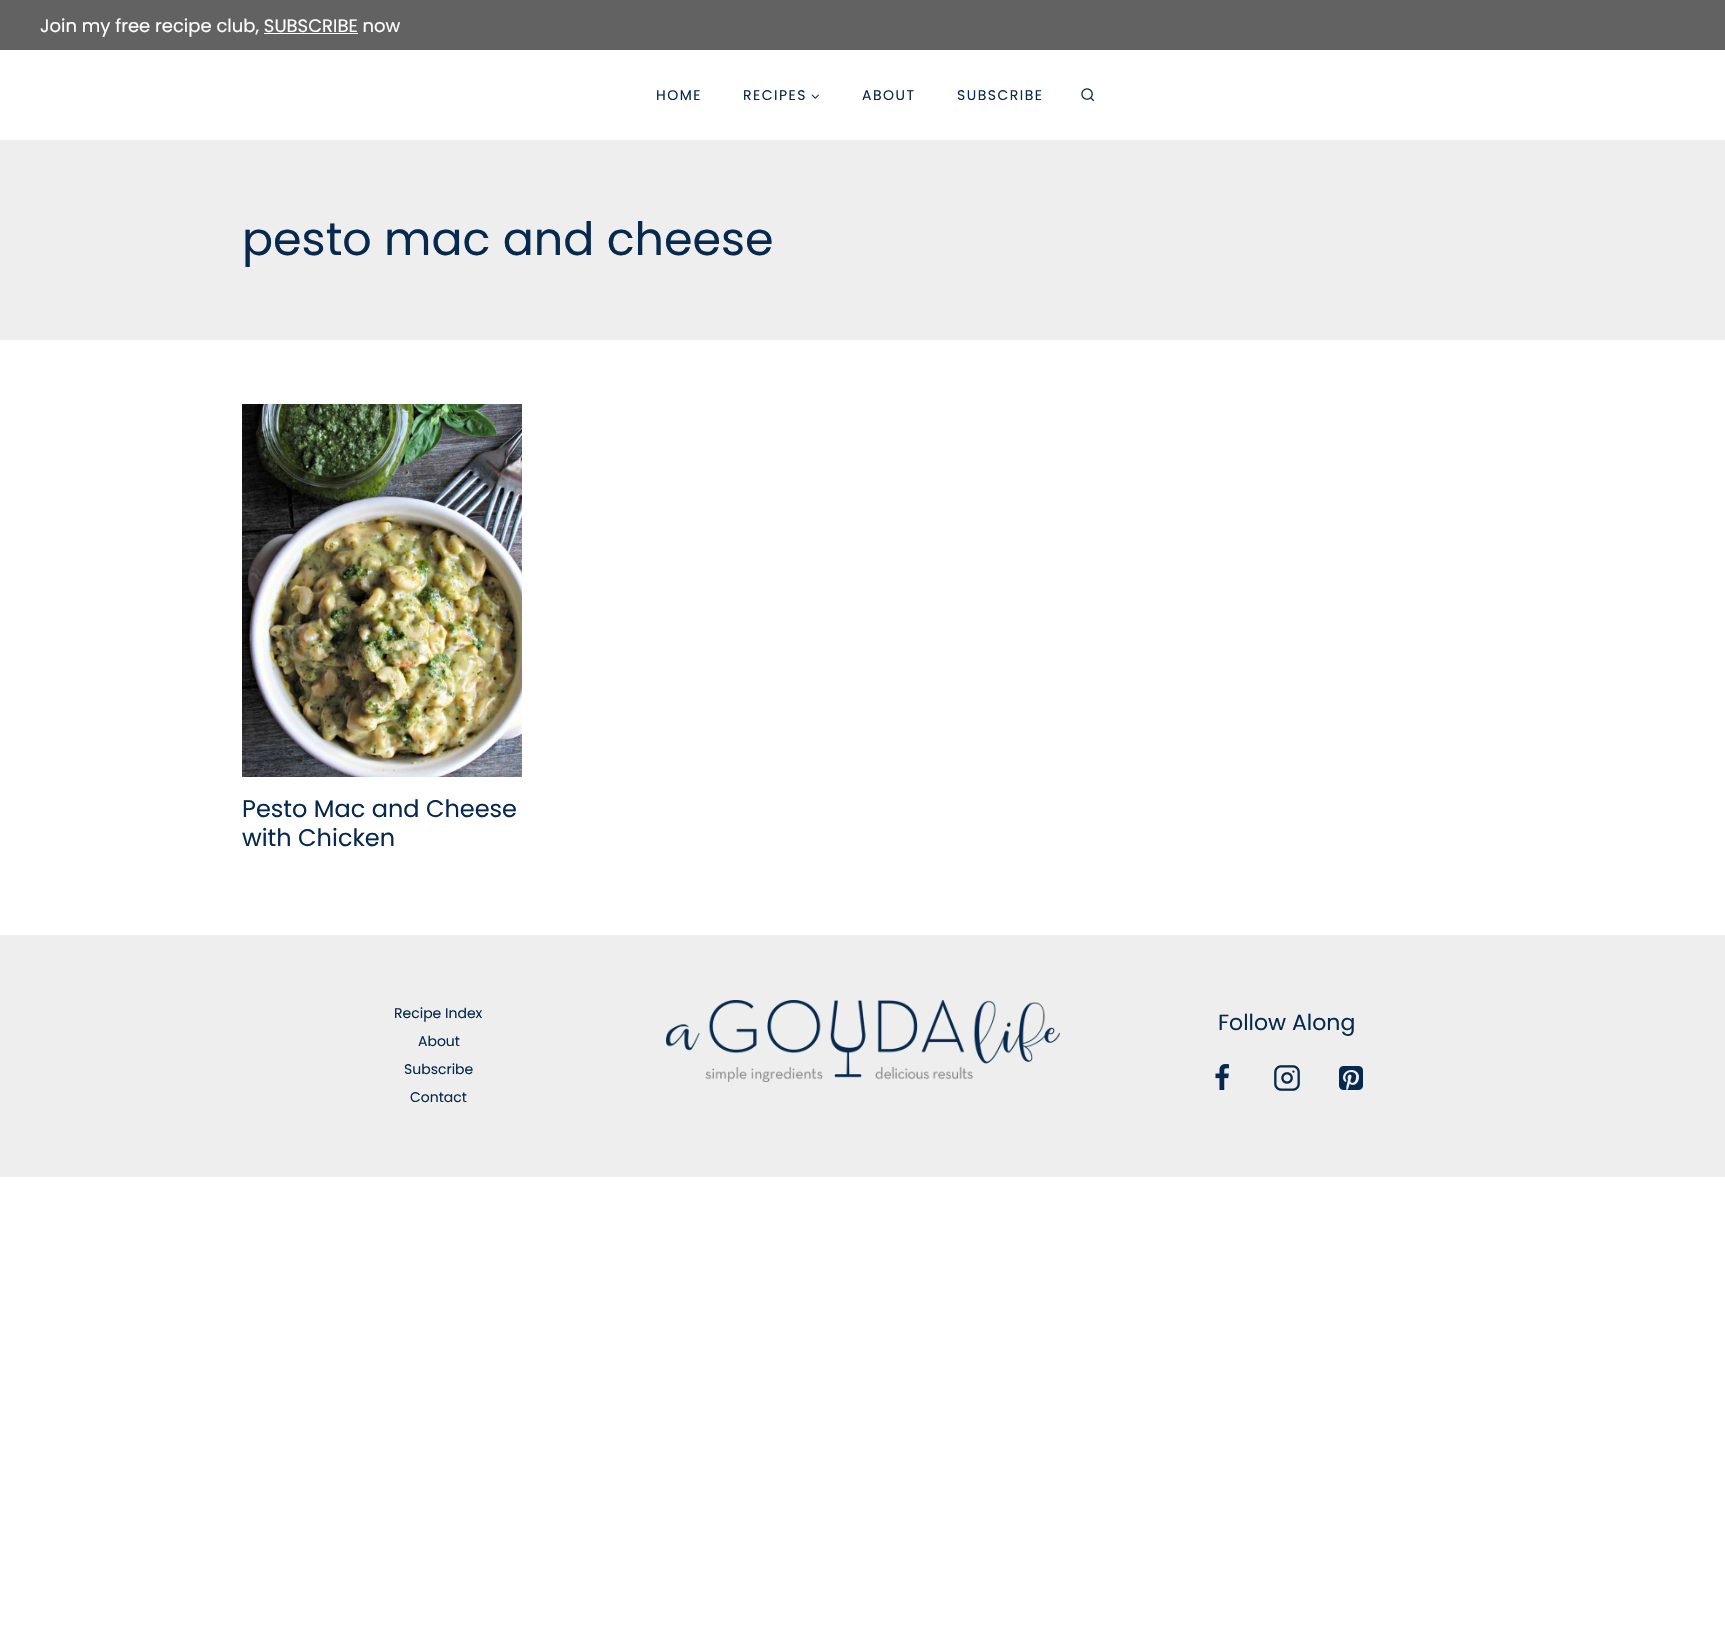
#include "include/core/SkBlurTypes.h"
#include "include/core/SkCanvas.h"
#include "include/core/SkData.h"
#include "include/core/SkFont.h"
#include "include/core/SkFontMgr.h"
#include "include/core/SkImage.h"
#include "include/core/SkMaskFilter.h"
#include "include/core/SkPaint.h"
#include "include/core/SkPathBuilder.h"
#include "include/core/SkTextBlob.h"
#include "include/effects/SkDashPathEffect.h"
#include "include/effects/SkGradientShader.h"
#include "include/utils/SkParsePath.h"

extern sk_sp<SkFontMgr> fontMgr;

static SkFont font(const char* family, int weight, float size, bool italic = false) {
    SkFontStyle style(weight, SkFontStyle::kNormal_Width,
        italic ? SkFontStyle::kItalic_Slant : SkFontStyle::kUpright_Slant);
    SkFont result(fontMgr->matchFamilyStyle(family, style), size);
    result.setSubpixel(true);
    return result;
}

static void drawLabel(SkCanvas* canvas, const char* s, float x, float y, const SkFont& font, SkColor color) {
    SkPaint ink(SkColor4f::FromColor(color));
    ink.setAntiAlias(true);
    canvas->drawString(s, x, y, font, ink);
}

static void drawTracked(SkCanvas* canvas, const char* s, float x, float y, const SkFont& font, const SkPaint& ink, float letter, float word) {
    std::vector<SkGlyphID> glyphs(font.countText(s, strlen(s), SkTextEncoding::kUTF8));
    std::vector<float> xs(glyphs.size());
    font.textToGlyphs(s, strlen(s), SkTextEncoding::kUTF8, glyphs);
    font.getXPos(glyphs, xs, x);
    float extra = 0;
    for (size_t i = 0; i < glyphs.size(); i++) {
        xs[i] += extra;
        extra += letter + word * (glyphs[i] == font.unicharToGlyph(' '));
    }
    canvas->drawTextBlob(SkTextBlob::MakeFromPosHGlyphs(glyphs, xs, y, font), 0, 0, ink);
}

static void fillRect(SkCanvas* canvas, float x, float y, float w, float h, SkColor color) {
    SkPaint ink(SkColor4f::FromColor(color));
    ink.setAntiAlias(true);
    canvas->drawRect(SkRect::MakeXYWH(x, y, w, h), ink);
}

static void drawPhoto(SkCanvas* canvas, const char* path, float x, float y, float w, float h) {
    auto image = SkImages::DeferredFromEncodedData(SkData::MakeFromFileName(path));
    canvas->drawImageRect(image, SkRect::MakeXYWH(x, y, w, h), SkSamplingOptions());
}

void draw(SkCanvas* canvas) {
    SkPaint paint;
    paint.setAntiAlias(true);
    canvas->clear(0xFFFFFFFF);
    fillRect(canvas, 0, 0, 1725, 50, 0xFF626262);
    SkFont font1 = font("Poppins", 400, 18);
    drawLabel(canvas, "Join my free recipe club, SUBSCRIBE now", 40, 32, font1, 0xFFFFFFFF);
    fillRect(canvas, 264, 33, 94, 1, 0xFFFFFFFF);
    SkFont font2 = font("Poppins", 400, 14);
    paint.setColor(0xFF06294D);
    drawTracked(canvas, "HOME", 656, 100, font2, paint, 1.5f, 0);
    drawTracked(canvas, "RECIPES", 743, 100, font2, paint, 1.5f, 0);
    drawPhoto(canvas, "assets/img1.png", 811, 94, 8, 5);
    drawTracked(canvas, "ABOUT", 862, 100, font2, paint, 1.5f, 0);
    drawTracked(canvas, "SUBSCRIBE", 957, 100, font2, paint, 1.5f, 0);
    drawPhoto(canvas, "assets/img2.png", 1081, 88, 14, 14);
    fillRect(canvas, 0, 140, 1725, 200, 0xFFEEEEEE);
    SkFont font3 = font("Poppins", 400, 46);
    drawLabel(canvas, "pesto mac and cheese", 242, 255, font3, 0xFF06294D);
    drawPhoto(canvas, "assets/img3.png", 242, 404, 280, 373);
    SkFont font4 = font("Poppins", 400, 24);
    drawLabel(canvas, "Pesto Mac and Cheese", 242, 817, font4, 0xFF06294D);
    drawLabel(canvas, "with Chicken", 242, 846, font4, 0xFF06294D);
    fillRect(canvas, 0, 935, 1725, 242, 0xFFEEEEEE);
    drawLabel(canvas, "Recipe Index", 394, 1018, font2, 0xFF06294D);
    drawLabel(canvas, "About", 418, 1046, font2, 0xFF06294D);
    drawLabel(canvas, "Subscribe", 404, 1074, font2, 0xFF06294D);
    drawLabel(canvas, "Contact", 410, 1102, font2, 0xFF06294D);
    drawPhoto(canvas, "assets/img4.png", 666, 1000, 394, 82);
    SkFont font5 = font("Poppins", 400, 22);
    drawLabel(canvas, "Follow Along", 1218, 1030, font5, 0xFF06294D);
    drawPhoto(canvas, "assets/img5.png", 1215, 1064, 14, 26);
    drawPhoto(canvas, "assets/img6.png", 1274, 1065, 26, 26);
    drawPhoto(canvas, "assets/img7.png", 1339, 1066, 24, 24);
}
